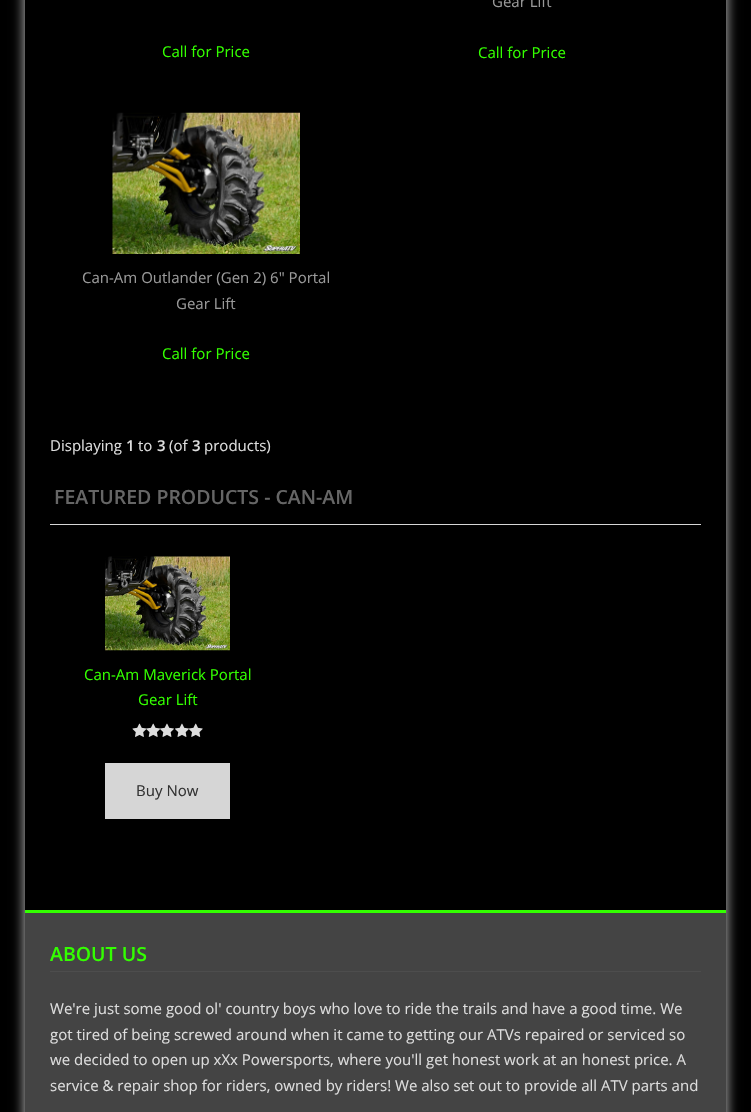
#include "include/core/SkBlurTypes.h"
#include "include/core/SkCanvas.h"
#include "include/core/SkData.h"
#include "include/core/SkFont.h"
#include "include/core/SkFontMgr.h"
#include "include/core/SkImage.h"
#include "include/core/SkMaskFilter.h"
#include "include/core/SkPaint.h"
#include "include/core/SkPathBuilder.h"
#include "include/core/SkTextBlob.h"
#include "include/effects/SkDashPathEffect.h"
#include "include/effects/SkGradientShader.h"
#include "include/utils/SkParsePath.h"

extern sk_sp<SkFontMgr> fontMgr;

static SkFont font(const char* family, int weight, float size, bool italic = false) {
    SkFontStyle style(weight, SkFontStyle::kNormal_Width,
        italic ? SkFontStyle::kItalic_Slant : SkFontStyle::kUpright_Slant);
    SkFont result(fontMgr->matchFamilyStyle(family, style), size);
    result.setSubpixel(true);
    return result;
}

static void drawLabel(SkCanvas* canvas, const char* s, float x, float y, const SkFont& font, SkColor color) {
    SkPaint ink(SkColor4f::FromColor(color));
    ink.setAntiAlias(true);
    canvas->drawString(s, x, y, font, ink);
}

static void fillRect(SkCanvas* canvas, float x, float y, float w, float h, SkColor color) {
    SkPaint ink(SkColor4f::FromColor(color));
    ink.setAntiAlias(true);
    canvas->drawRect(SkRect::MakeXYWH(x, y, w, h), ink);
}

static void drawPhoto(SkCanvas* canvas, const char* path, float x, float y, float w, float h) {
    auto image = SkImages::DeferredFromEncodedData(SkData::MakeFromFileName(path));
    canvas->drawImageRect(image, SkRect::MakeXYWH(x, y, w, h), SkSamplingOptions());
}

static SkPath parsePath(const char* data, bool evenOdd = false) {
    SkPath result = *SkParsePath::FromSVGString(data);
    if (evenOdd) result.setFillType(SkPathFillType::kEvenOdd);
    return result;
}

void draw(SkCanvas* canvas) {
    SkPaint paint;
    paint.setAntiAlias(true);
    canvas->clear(0xFF000000);
    canvas->save();
    canvas->clipPath(parsePath("M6 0H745V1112H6ZM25-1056H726V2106H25Z", true), true);
    paint.setColor(0xFFCCCCCC);
    paint.setMaskFilter(SkMaskFilter::MakeBlur(kNormal_SkBlurStyle, 6));
    canvas->drawRect(SkRect::MakeXYWH(25, -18, 701, 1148), paint);
    paint.setMaskFilter(nullptr);
    canvas->restore();
    SkFont font1 = font("Open Sans", 400, 15);
    drawLabel(canvas, "Call for Price", 162, 57, font1, 0xFF33FF00);
    drawLabel(canvas, "Gear Lift", 492, 7, font1, 0xFF999999);
    drawLabel(canvas, "Call for Price", 478, 58, font1, 0xFF33FF00);
    drawPhoto(canvas, "assets/img1.png", 112, 112, 188, 142);
    drawLabel(canvas, "Can-Am Outlander (Gen 2) 6\" Portal", 82, 283, font1, 0xFF999999);
    drawLabel(canvas, "Gear Lift", 176, 309, font1, 0xFF999999);
    drawLabel(canvas, "Call for Price", 162, 359, font1, 0xFF33FF00);
    drawLabel(canvas, "Displaying", 50, 451, font1, 0xFFDDDDDD);
    SkFont font2 = font("Open Sans", 600, 15);
    drawLabel(canvas, "1", 126, 451, font2, 0xFFDDDDDD);
    drawLabel(canvas, "to", 138, 451, font1, 0xFFDDDDDD);
    drawLabel(canvas, "3", 157, 451, font2, 0xFFDDDDDD);
    drawLabel(canvas, "(of", 169, 451, font1, 0xFFDDDDDD);
    drawLabel(canvas, "3", 192, 451, font2, 0xFFDDDDDD);
    drawLabel(canvas, "products)", 204, 451, font1, 0xFFDDDDDD);
    fillRect(canvas, 50, 524, 651, 1, 0xFFD6D6D6);
    SkFont font3 = font("Open Sans", 600, 19.5f);
    drawLabel(canvas, "FEATURED PRODUCTS - CAN-AM", 54, 504, font3, 0xFF666666);
    drawPhoto(canvas, "assets/img2.png", 105, 556, 125, 95);
    drawLabel(canvas, "Can-Am Maverick Portal", 84, 680, font1, 0xFF33FF00);
    drawLabel(canvas, "Gear Lift", 138, 705, font1, 0xFF33FF00);
    drawPhoto(canvas, "assets/img3.png", 132, 723, 15, 14);
    drawPhoto(canvas, "assets/img4.png", 146, 723, 15, 14);
    drawPhoto(canvas, "assets/img5.png", 160, 723, 14, 14);
    drawPhoto(canvas, "assets/img6.png", 175, 723, 14, 14);
    drawPhoto(canvas, "assets/img7.png", 188, 723, 15, 14);
    fillRect(canvas, 105, 763, 125, 56, 0xFFD6D6D6);
    drawLabel(canvas, "Buy Now", 136, 796, font1, 0xFF333333);
    fillRect(canvas, 25, 913, 701, 199, 0xFF444444);
    fillRect(canvas, 25, 910, 701, 3, 0xFF33FF00);
    fillRect(canvas, 50, 971, 651, 1, 0xFF4D4D4D);
    drawLabel(canvas, "ABOUT US", 50, 961, font3, 0xFF33FF00);
    drawLabel(canvas, "We're just some good ol' country boys who love to ride the trails and have a good time. We", 50, 1014, font1, 0xFFDDDDDD);
    drawLabel(canvas, "got tired of being screwed around when it came to getting our ATVs repaired or serviced so", 50, 1040, font1, 0xFFDDDDDD);
    drawLabel(canvas, "we decided to open up xXx Powersports, where you'll get honest work at an honest price. A", 50, 1065, font1, 0xFFDDDDDD);
    drawLabel(canvas, "service & repair shop for riders, owned by riders! We also set out to provide all ATV parts and", 50, 1091, font1, 0xFFDDDDDD);
}
